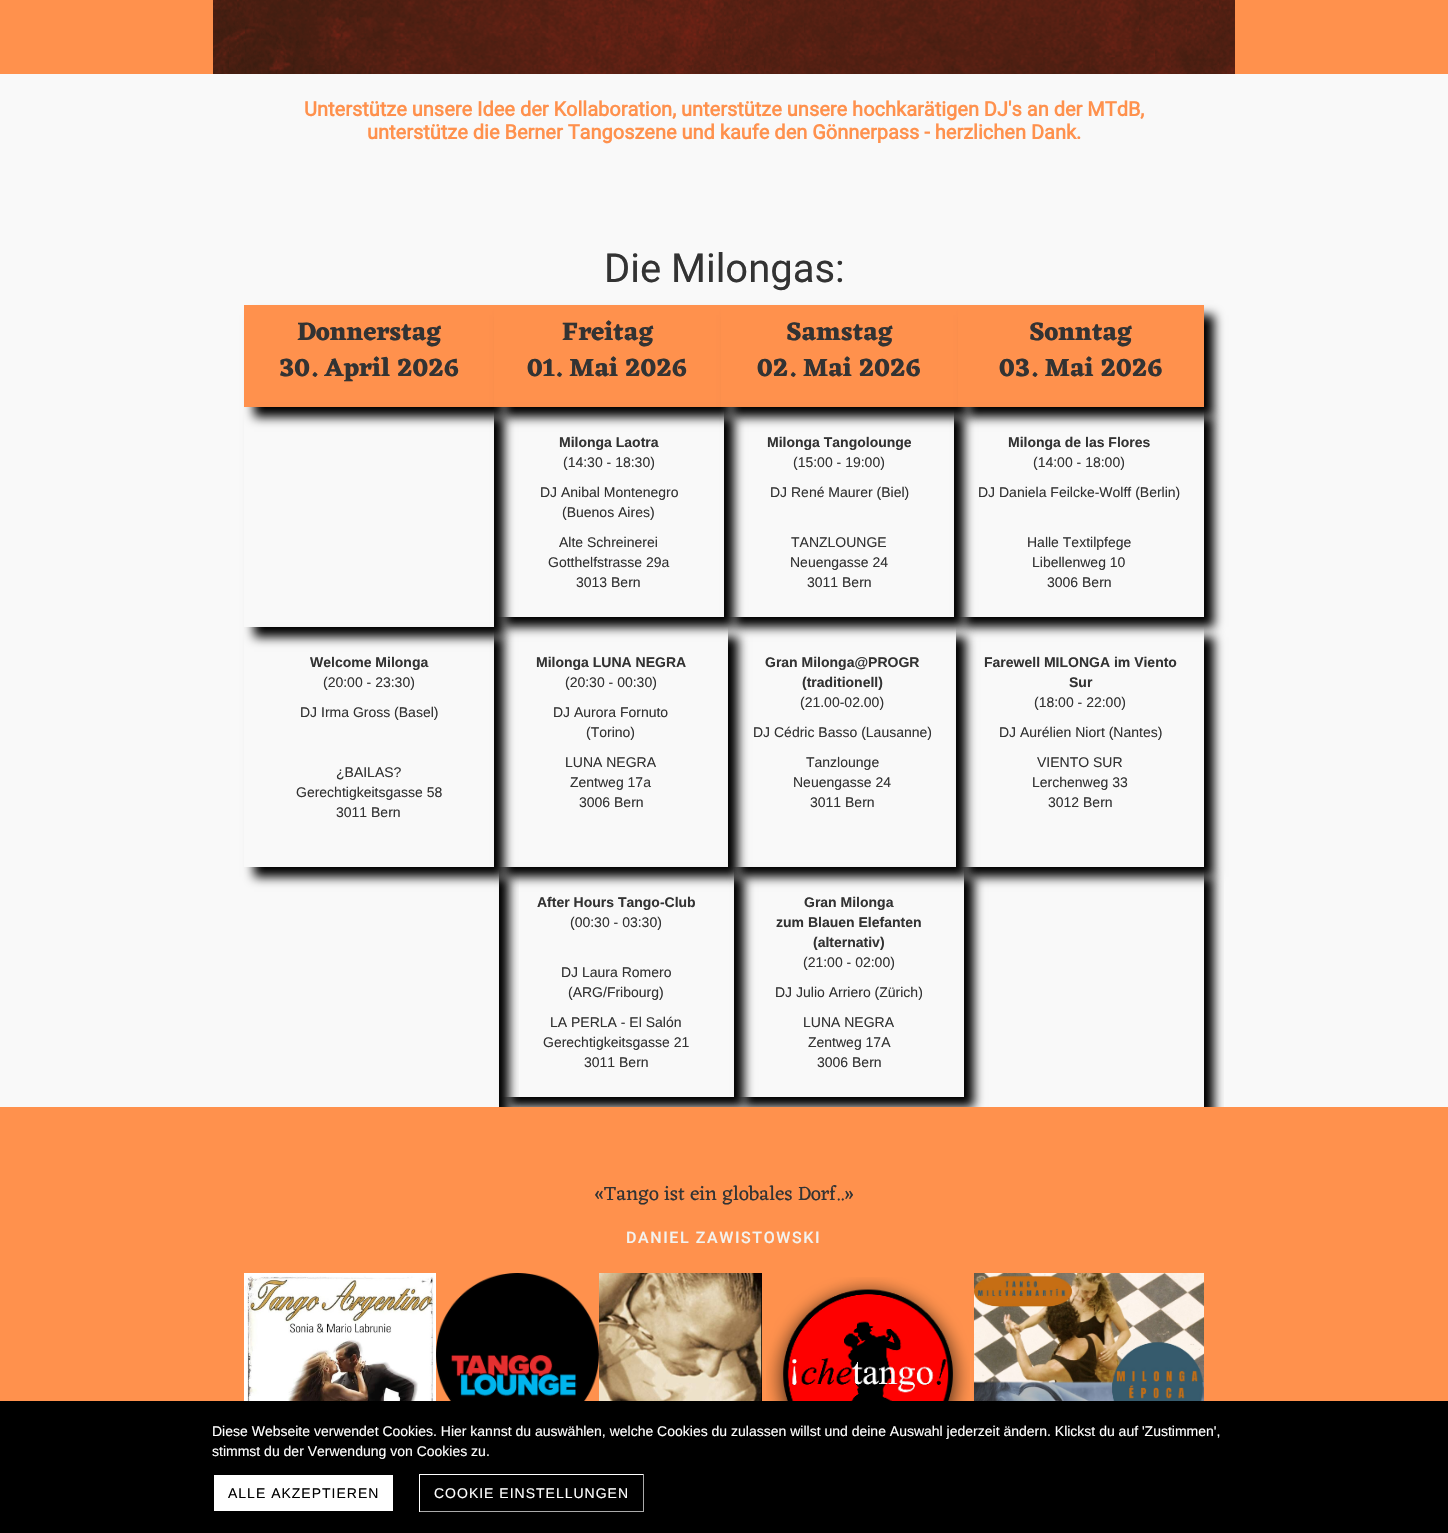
#include "include/core/SkBlurTypes.h"
#include "include/core/SkCanvas.h"
#include "include/core/SkData.h"
#include "include/core/SkFont.h"
#include "include/core/SkFontMgr.h"
#include "include/core/SkImage.h"
#include "include/core/SkMaskFilter.h"
#include "include/core/SkPaint.h"
#include "include/core/SkPathBuilder.h"
#include "include/core/SkTextBlob.h"
#include "include/effects/SkDashPathEffect.h"
#include "include/effects/SkGradientShader.h"
#include "include/utils/SkParsePath.h"

extern sk_sp<SkFontMgr> fontMgr;

static SkFont font(const char* family, int weight, float size, bool italic = false) {
    SkFontStyle style(weight, SkFontStyle::kNormal_Width,
        italic ? SkFontStyle::kItalic_Slant : SkFontStyle::kUpright_Slant);
    SkFont result(fontMgr->matchFamilyStyle(family, style), size);
    result.setSubpixel(true);
    return result;
}

static void drawLabel(SkCanvas* canvas, const char* s, float x, float y, const SkFont& font, SkColor color) {
    SkPaint ink(SkColor4f::FromColor(color));
    ink.setAntiAlias(true);
    canvas->drawString(s, x, y, font, ink);
}

static void drawTracked(SkCanvas* canvas, const char* s, float x, float y, const SkFont& font, const SkPaint& ink, float letter, float word) {
    std::vector<SkGlyphID> glyphs(font.countText(s, strlen(s), SkTextEncoding::kUTF8));
    std::vector<float> xs(glyphs.size());
    font.textToGlyphs(s, strlen(s), SkTextEncoding::kUTF8, glyphs);
    font.getXPos(glyphs, xs, x);
    float extra = 0;
    for (size_t i = 0; i < glyphs.size(); i++) {
        xs[i] += extra;
        extra += letter + word * (glyphs[i] == font.unicharToGlyph(' '));
    }
    canvas->drawTextBlob(SkTextBlob::MakeFromPosHGlyphs(glyphs, xs, y, font), 0, 0, ink);
}

static void fillRect(SkCanvas* canvas, float x, float y, float w, float h, SkColor color) {
    SkPaint ink(SkColor4f::FromColor(color));
    ink.setAntiAlias(true);
    canvas->drawRect(SkRect::MakeXYWH(x, y, w, h), ink);
}

static void drawPhoto(SkCanvas* canvas, const char* path, float x, float y, float w, float h) {
    auto image = SkImages::DeferredFromEncodedData(SkData::MakeFromFileName(path));
    canvas->drawImageRect(image, SkRect::MakeXYWH(x, y, w, h), SkSamplingOptions());
}

static SkPath parsePath(const char* data, bool evenOdd = false) {
    SkPath result = *SkParsePath::FromSVGString(data);
    if (evenOdd) result.setFillType(SkPathFillType::kEvenOdd);
    return result;
}

void draw(SkCanvas* canvas) {
    SkPaint paint;
    paint.setAntiAlias(true);
    canvas->clear(0xFFF9F9F9);
    fillRect(canvas, 0, 0, 1448, 74, 0xFFFF914D);
    drawPhoto(canvas, "assets/img1.png", 213, 0, 1022, 74);
    SkFont font1 = font("Roboto", 700, 20);
    drawLabel(canvas, "Unterstütze unsere Idee der Kollaboration, unterstütze unsere hochkarätigen DJ's an der MTdB,", 304, 116, font1, 0xFFFF914D);
    drawLabel(canvas, "unterstütze die Berner Tangoszene und kaufe den Gönnerpass - herzlichen Dank.", 367, 139, font1, 0xFFFF914D);
    SkFont font2 = font("Roboto", 400, 40);
    drawLabel(canvas, "Die Milongas:", 604, 282, font2, 0xFF333333);
    paint.setColor(0xFF000000);
    paint.setMaskFilter(SkMaskFilter::MakeBlur(kNormal_SkBlurStyle, 5));
    canvas->drawRect(SkRect::MakeXYWH(254, 315, 250, 102), paint);
    paint.setMaskFilter(nullptr);
    fillRect(canvas, 244, 305, 250, 102, 0xFFFF914D);
    SkFont font3 = font("Eczar", 700, 26);
    drawLabel(canvas, "Donnerstag", 297, 340, font3, 0xFF333333);
    drawLabel(canvas, "30. April 2026", 279, 376, font3, 0xFF333333);
    paint.setMaskFilter(SkMaskFilter::MakeBlur(kNormal_SkBlurStyle, 5));
    canvas->drawRect(SkRect::MakeXYWH(504, 315, 227, 102), paint);
    paint.setMaskFilter(nullptr);
    fillRect(canvas, 494, 305, 227, 102, 0xFFFF914D);
    drawLabel(canvas, "Freitag", 562, 340, font3, 0xFF333333);
    drawLabel(canvas, "01. Mai 2026", 527, 376, font3, 0xFF333333);
    paint.setMaskFilter(SkMaskFilter::MakeBlur(kNormal_SkBlurStyle, 5));
    canvas->drawRect(SkRect::MakeXYWH(731, 315, 237, 102), paint);
    paint.setMaskFilter(nullptr);
    fillRect(canvas, 721, 305, 237, 102, 0xFFFF914D);
    drawLabel(canvas, "Samstag", 786, 340, font3, 0xFF333333);
    drawLabel(canvas, "02. Mai 2026", 757, 376, font3, 0xFF333333);
    paint.setMaskFilter(SkMaskFilter::MakeBlur(kNormal_SkBlurStyle, 5));
    canvas->drawRect(SkRect::MakeXYWH(968, 315, 246, 102), paint);
    paint.setMaskFilter(nullptr);
    fillRect(canvas, 958, 305, 246, 102, 0xFFFF914D);
    drawLabel(canvas, "Sonntag", 1029, 340, font3, 0xFF333333);
    drawLabel(canvas, "03. Mai 2026", 999, 376, font3, 0xFF333333);
    canvas->save();
    canvas->clipPath(parsePath("M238 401H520V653H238ZM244 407H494V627H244Z", true), true);
    paint.setMaskFilter(SkMaskFilter::MakeBlur(kNormal_SkBlurStyle, 5));
    canvas->drawRect(SkRect::MakeXYWH(254, 417, 250, 220), paint);
    paint.setMaskFilter(nullptr);
    canvas->restore();
    canvas->save();
    canvas->clipPath(parsePath("M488 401H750V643H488ZM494 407H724V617H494Z", true), true);
    paint.setMaskFilter(SkMaskFilter::MakeBlur(kNormal_SkBlurStyle, 5));
    canvas->drawRect(SkRect::MakeXYWH(504, 417, 230, 210), paint);
    paint.setMaskFilter(nullptr);
    canvas->restore();
    SkFont font4 = font("Liberation Sans", 700, 14);
    drawLabel(canvas, "Milonga Laotra", 559, 447, font4, 0xFF333333);
    SkFont font5 = font("Liberation Sans", 400, 14);
    drawLabel(canvas, "(14:30 - 18:30)", 563, 467, font5, 0xFF333333);
    drawLabel(canvas, "DJ Anibal Montenegro", 540, 497, font5, 0xFF333333);
    drawLabel(canvas, "(Buenos Aires)", 562, 517, font5, 0xFF333333);
    drawLabel(canvas, "Alte Schreinerei", 559, 547, font5, 0xFF333333);
    drawLabel(canvas, "Gotthelfstrasse 29a", 548, 567, font5, 0xFF333333);
    drawLabel(canvas, "3013 Bern", 576, 587, font5, 0xFF333333);
    canvas->save();
    canvas->clipPath(parsePath("M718 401H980V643H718ZM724 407H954V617H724Z", true), true);
    paint.setMaskFilter(SkMaskFilter::MakeBlur(kNormal_SkBlurStyle, 5));
    canvas->drawRect(SkRect::MakeXYWH(734, 417, 230, 210), paint);
    paint.setMaskFilter(nullptr);
    canvas->restore();
    drawLabel(canvas, "Milonga Tangolounge", 767, 447, font4, 0xFF333333);
    drawLabel(canvas, "(15:00 - 19:00)", 793, 467, font5, 0xFF333333);
    drawLabel(canvas, "DJ René Maurer (Biel)", 770, 497, font5, 0xFF333333);
    drawLabel(canvas, "TANZLOUNGE", 791, 547, font5, 0xFF333333);
    drawLabel(canvas, "Neuengasse 24", 790, 567, font5, 0xFF333333);
    drawLabel(canvas, "3011 Bern", 807, 587, font5, 0xFF333333);
    canvas->save();
    canvas->clipPath(parsePath("M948 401H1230V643H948ZM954 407H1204V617H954Z", true), true);
    paint.setMaskFilter(SkMaskFilter::MakeBlur(kNormal_SkBlurStyle, 5));
    canvas->drawRect(SkRect::MakeXYWH(964, 417, 250, 210), paint);
    paint.setMaskFilter(nullptr);
    canvas->restore();
    drawLabel(canvas, "Milonga de las Flores", 1008, 447, font4, 0xFF333333);
    drawLabel(canvas, "(14:00 - 18:00)", 1033, 467, font5, 0xFF333333);
    drawLabel(canvas, "DJ Daniela Feilcke-Wolff (Berlin)", 978, 497, font5, 0xFF333333);
    drawLabel(canvas, "Halle Textilpfege", 1027, 547, font5, 0xFF333333);
    drawLabel(canvas, "Libellenweg 10", 1032, 567, font5, 0xFF333333);
    drawLabel(canvas, "3006 Bern", 1047, 587, font5, 0xFF333333);
    canvas->save();
    canvas->clipPath(parsePath("M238 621H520V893H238ZM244 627H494V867H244Z", true), true);
    paint.setMaskFilter(SkMaskFilter::MakeBlur(kNormal_SkBlurStyle, 5));
    canvas->drawRect(SkRect::MakeXYWH(254, 637, 250, 240), paint);
    paint.setMaskFilter(nullptr);
    canvas->restore();
    drawLabel(canvas, "Welcome Milonga", 310, 667, font4, 0xFF333333);
    drawLabel(canvas, "(20:00 - 23:30)", 323, 687, font5, 0xFF333333);
    drawLabel(canvas, "DJ Irma Gross (Basel)", 300, 717, font5, 0xFF333333);
    drawLabel(canvas, "¿BAILAS?", 336, 777, font5, 0xFF333333);
    drawLabel(canvas, "Gerechtigkeitsgasse 58", 296, 797, font5, 0xFF333333);
    drawLabel(canvas, "3011 Bern", 336, 817, font5, 0xFF333333);
    canvas->save();
    canvas->clipPath(parsePath("M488 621H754V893H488ZM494 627H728V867H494Z", true), true);
    paint.setMaskFilter(SkMaskFilter::MakeBlur(kNormal_SkBlurStyle, 5));
    canvas->drawRect(SkRect::MakeXYWH(504, 637, 234, 240), paint);
    paint.setMaskFilter(nullptr);
    canvas->restore();
    drawLabel(canvas, "Milonga LUNA NEGRA", 536, 667, font4, 0xFF333333);
    drawLabel(canvas, "(20:30 - 00:30)", 565, 687, font5, 0xFF333333);
    drawLabel(canvas, "DJ Aurora Fornuto", 553, 717, font5, 0xFF333333);
    drawLabel(canvas, "(Torino)", 586, 737, font5, 0xFF333333);
    drawLabel(canvas, "LUNA NEGRA", 565, 767, font5, 0xFF333333);
    drawLabel(canvas, "Zentweg 17a", 570, 787, font5, 0xFF333333);
    drawLabel(canvas, "3006 Bern", 579, 807, font5, 0xFF333333);
    canvas->save();
    canvas->clipPath(parsePath("M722 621H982V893H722ZM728 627H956V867H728Z", true), true);
    paint.setMaskFilter(SkMaskFilter::MakeBlur(kNormal_SkBlurStyle, 5));
    canvas->drawRect(SkRect::MakeXYWH(738, 637, 228, 240), paint);
    paint.setMaskFilter(nullptr);
    canvas->restore();
    drawLabel(canvas, "Gran Milonga@PROGR", 765, 667, font4, 0xFF333333);
    drawLabel(canvas, "(traditionell)", 802, 687, font4, 0xFF333333);
    drawLabel(canvas, "(21.00-02.00)", 800, 707, font5, 0xFF333333);
    drawLabel(canvas, "DJ Cédric Basso (Lausanne)", 753, 737, font5, 0xFF333333);
    drawLabel(canvas, "Tanzlounge", 806, 767, font5, 0xFF333333);
    drawLabel(canvas, "Neuengasse 24", 793, 787, font5, 0xFF333333);
    drawLabel(canvas, "3011 Bern", 810, 807, font5, 0xFF333333);
    canvas->save();
    canvas->clipPath(parsePath("M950 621H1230V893H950ZM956 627H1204V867H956Z", true), true);
    paint.setMaskFilter(SkMaskFilter::MakeBlur(kNormal_SkBlurStyle, 5));
    canvas->drawRect(SkRect::MakeXYWH(966, 637, 248, 240), paint);
    paint.setMaskFilter(nullptr);
    canvas->restore();
    drawLabel(canvas, "Farewell MILONGA im Viento", 984, 667, font4, 0xFF333333);
    drawLabel(canvas, "Sur", 1069, 687, font4, 0xFF333333);
    drawLabel(canvas, "(18:00 - 22:00)", 1034, 707, font5, 0xFF333333);
    drawLabel(canvas, "DJ Aurélien Niort (Nantes)", 999, 737, font5, 0xFF333333);
    drawLabel(canvas, "VIENTO SUR", 1037, 767, font5, 0xFF333333);
    drawLabel(canvas, "Lerchenweg 33", 1032, 787, font5, 0xFF333333);
    drawLabel(canvas, "3012 Bern", 1048, 807, font5, 0xFF333333);
    canvas->save();
    canvas->clipRect(SkRect::MakeXYWH(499, 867, 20, 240));
    paint.setMaskFilter(SkMaskFilter::MakeBlur(kNormal_SkBlurStyle, 5));
    canvas->drawRect(SkRect::MakeXYWH(254, 877, 255, 240), paint);
    paint.setMaskFilter(nullptr);
    canvas->restore();
    canvas->save();
    canvas->clipPath(parsePath("M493 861H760V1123H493ZM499 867H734V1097H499Z", true), true);
    paint.setMaskFilter(SkMaskFilter::MakeBlur(kNormal_SkBlurStyle, 5));
    canvas->drawRect(SkRect::MakeXYWH(509, 877, 235, 230), paint);
    paint.setMaskFilter(nullptr);
    canvas->restore();
    drawLabel(canvas, "After Hours Tango-Club", 537, 907, font4, 0xFF333333);
    drawLabel(canvas, "(00:30 - 03:30)", 570, 927, font5, 0xFF333333);
    drawLabel(canvas, "DJ Laura Romero", 561, 977, font5, 0xFF333333);
    drawLabel(canvas, "(ARG/Fribourg)", 568, 997, font5, 0xFF333333);
    drawLabel(canvas, "LA PERLA - El Salón", 550, 1027, font5, 0xFF333333);
    drawLabel(canvas, "Gerechtigkeitsgasse 21", 543, 1047, font5, 0xFF333333);
    drawLabel(canvas, "3011 Bern", 584, 1067, font5, 0xFF333333);
    canvas->save();
    canvas->clipPath(parsePath("M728 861H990V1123H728ZM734 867H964V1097H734Z", true), true);
    paint.setMaskFilter(SkMaskFilter::MakeBlur(kNormal_SkBlurStyle, 5));
    canvas->drawRect(SkRect::MakeXYWH(744, 877, 230, 230), paint);
    paint.setMaskFilter(nullptr);
    canvas->restore();
    drawLabel(canvas, "Gran Milonga", 804, 907, font4, 0xFF333333);
    drawLabel(canvas, "zum Blauen Elefanten", 776, 927, font4, 0xFF333333);
    drawLabel(canvas, "(alternativ)", 813, 947, font4, 0xFF333333);
    drawLabel(canvas, "(21:00 - 02:00)", 803, 967, font5, 0xFF333333);
    drawLabel(canvas, "DJ Julio Arriero (Zürich)", 775, 997, font5, 0xFF333333);
    drawLabel(canvas, "LUNA NEGRA", 803, 1027, font5, 0xFF333333);
    drawLabel(canvas, "Zentweg 17A", 808, 1047, font5, 0xFF333333);
    drawLabel(canvas, "3006 Bern", 817, 1067, font5, 0xFF333333);
    canvas->save();
    canvas->clipRect(SkRect::MakeXYWH(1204, 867, 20, 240));
    paint.setMaskFilter(SkMaskFilter::MakeBlur(kNormal_SkBlurStyle, 5));
    canvas->drawRect(SkRect::MakeXYWH(974, 877, 240, 240), paint);
    paint.setMaskFilter(nullptr);
    canvas->restore();
    fillRect(canvas, 0, 1107, 1448, 294, 0xFFFF914D);
    SkFont font6 = font("Eczar", 400, 20);
    drawLabel(canvas, "«Tango ist ein globales Dorf..»", 594, 1200, font6, 0xFF333333);
    SkFont font7 = font("Roboto", 500, 16);
    paint.setColor(0xFFF3F2EE);
    drawTracked(canvas, "DANIEL ZAWISTOWSKI", 626, 1243, font7, paint, 1.6f, 0);
    drawPhoto(canvas, "assets/img2.png", 244, 1273, 192, 128);
    drawPhoto(canvas, "assets/img3.png", 436, 1273, 163, 128);
    drawPhoto(canvas, "assets/img4.png", 599, 1273, 163, 128);
    drawPhoto(canvas, "assets/img5.png", 766, 1277, 204, 124);
    drawPhoto(canvas, "assets/img6.png", 974, 1273, 230, 109);
    drawPhoto(canvas, "assets/img7.png", 974, 1382, 230, 19);
    fillRect(canvas, 0, 1401, 1448, 132, 0xFF000000);
    drawLabel(canvas, "Diese Webseite verwendet Cookies. Hier kannst du auswählen, welche Cookies du zulassen willst und deine Auswahl jederzeit ändern. Klickst du auf 'Zustimmen',", 212, 1436, font5, 0xFFFFFFFF);
    drawLabel(canvas, "stimmst du der Verwendung von Cookies zu.", 212, 1456, font5, 0xFFFFFFFF);
    fillRect(canvas, 214, 1475, 179, 36, 0xFFFFFFFF);
    paint.setColor(0xFF000000);
    drawTracked(canvas, "ALLE AKZEPTIEREN", 228, 1498, font5, paint, 1, 0);
    fillRect(canvas, 419, 1474, 225, 1, 0xFFFFFFFF);
    fillRect(canvas, 643, 1474, 1, 38, 0xFFAAAAAA);
    fillRect(canvas, 419, 1511, 225, 1, 0xFFAAAAAA);
    fillRect(canvas, 419, 1474, 1, 38, 0xFFFFFFFF);
    paint.setColor(0xFFFFFFFF);
    drawTracked(canvas, "COOKIE EINSTELLUNGEN", 434, 1498, font5, paint, 1, 0);
}
